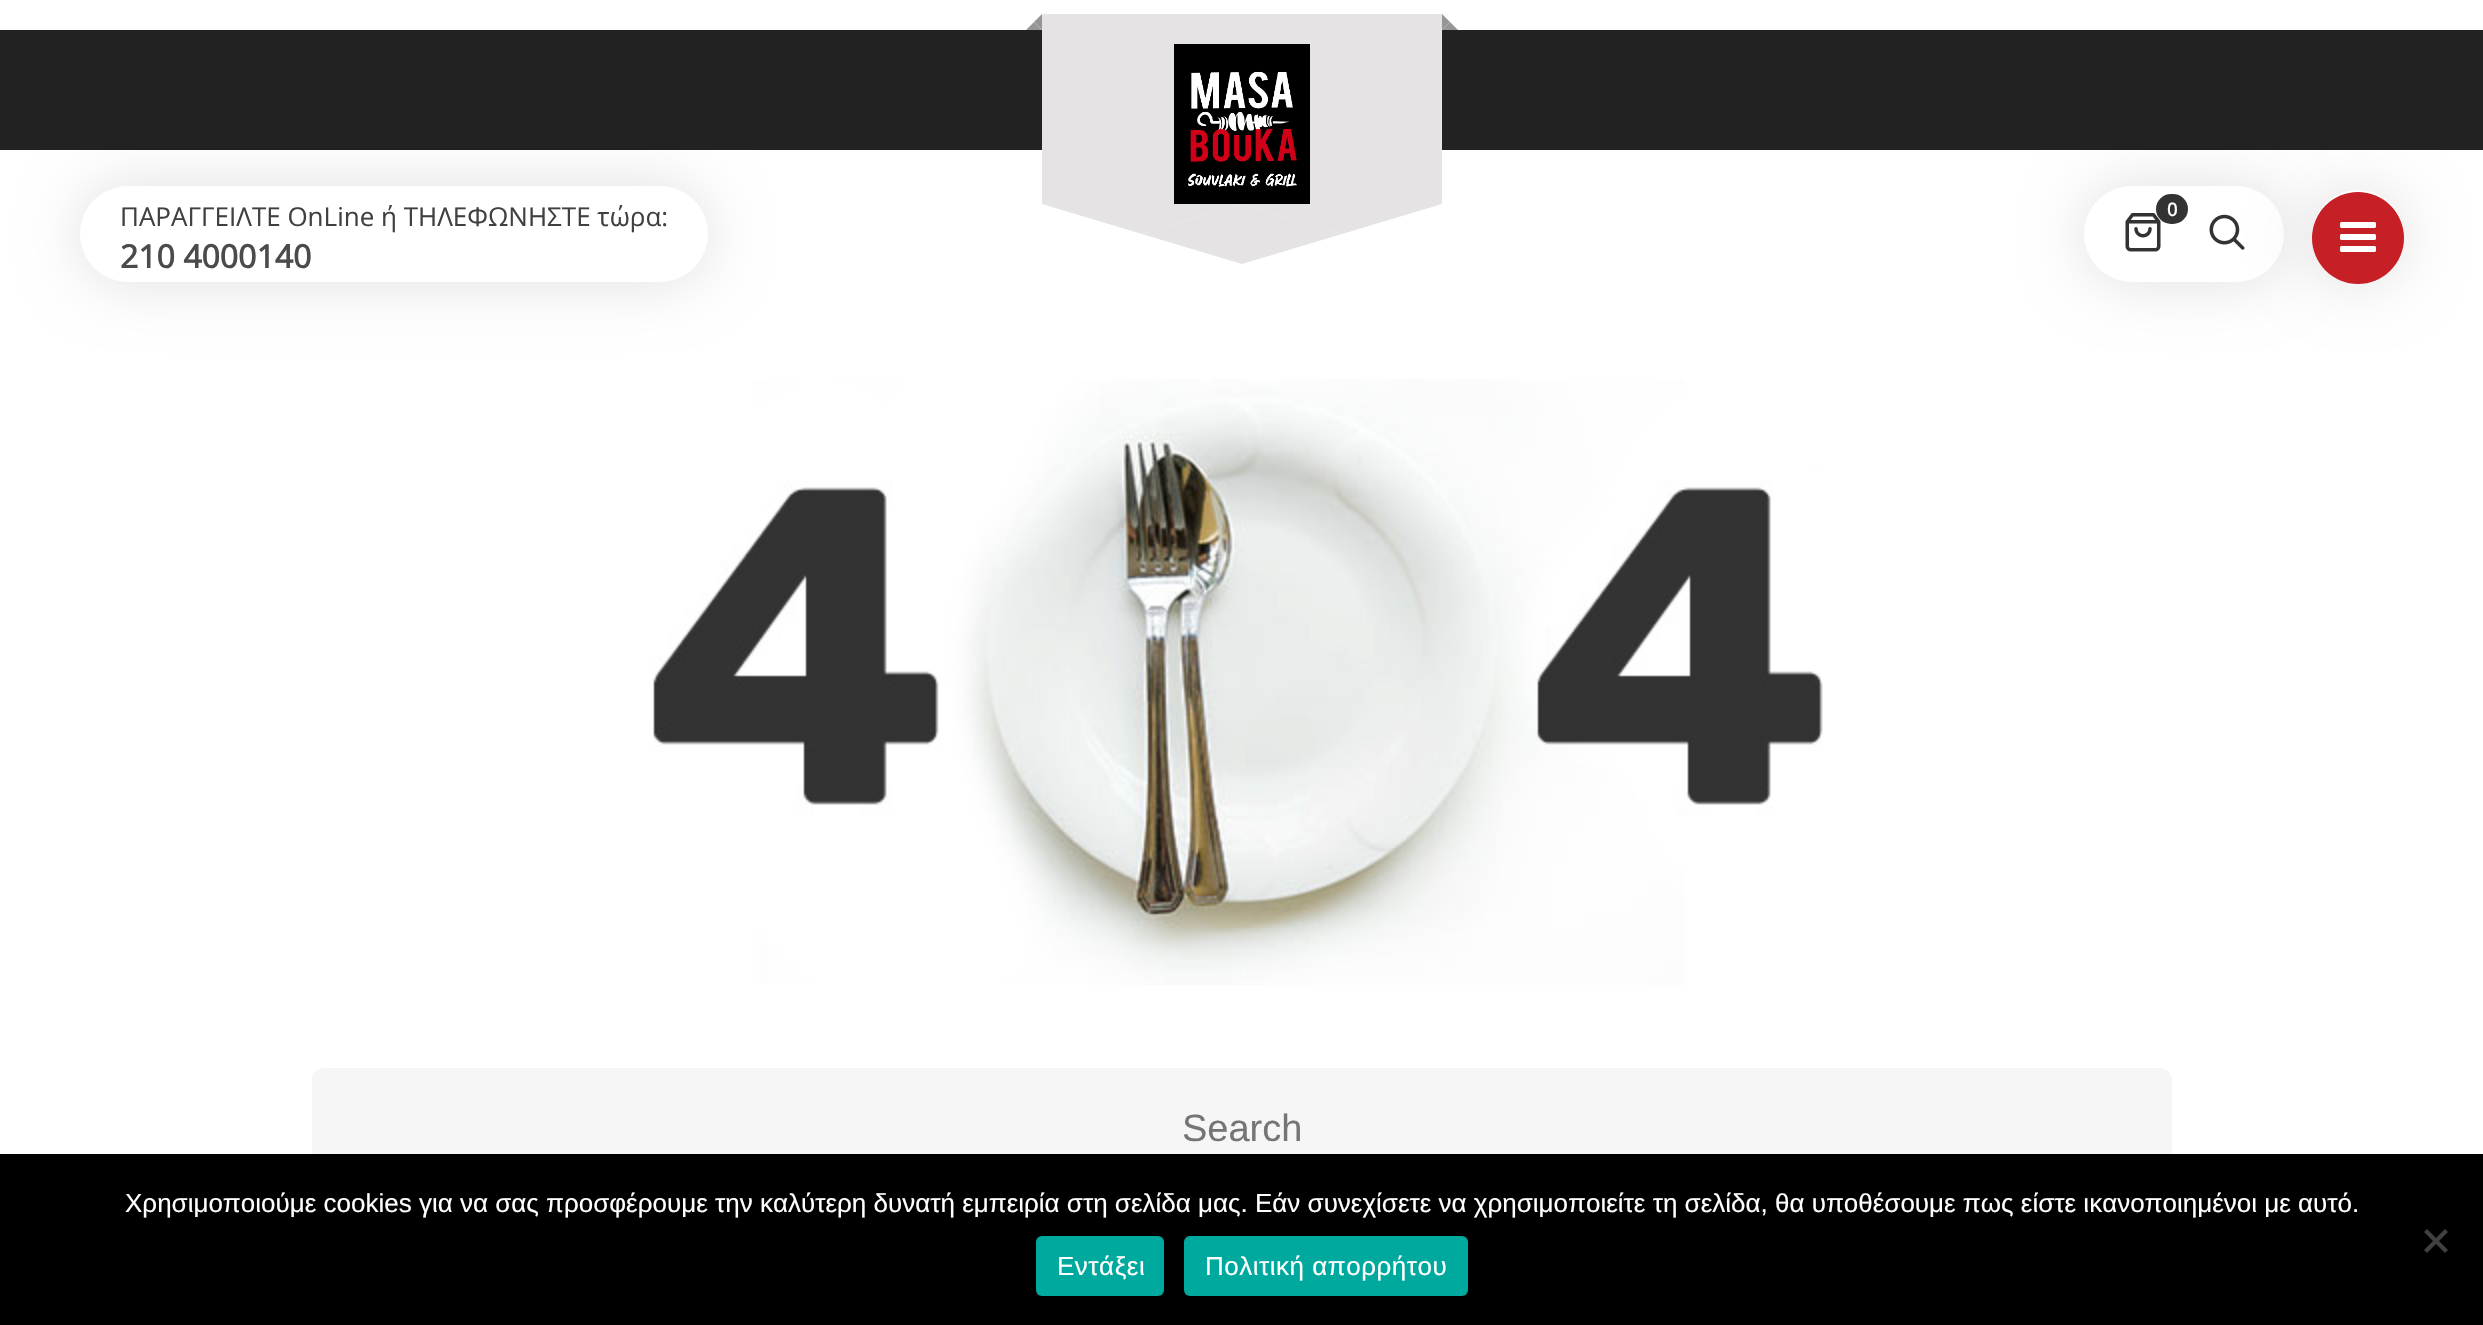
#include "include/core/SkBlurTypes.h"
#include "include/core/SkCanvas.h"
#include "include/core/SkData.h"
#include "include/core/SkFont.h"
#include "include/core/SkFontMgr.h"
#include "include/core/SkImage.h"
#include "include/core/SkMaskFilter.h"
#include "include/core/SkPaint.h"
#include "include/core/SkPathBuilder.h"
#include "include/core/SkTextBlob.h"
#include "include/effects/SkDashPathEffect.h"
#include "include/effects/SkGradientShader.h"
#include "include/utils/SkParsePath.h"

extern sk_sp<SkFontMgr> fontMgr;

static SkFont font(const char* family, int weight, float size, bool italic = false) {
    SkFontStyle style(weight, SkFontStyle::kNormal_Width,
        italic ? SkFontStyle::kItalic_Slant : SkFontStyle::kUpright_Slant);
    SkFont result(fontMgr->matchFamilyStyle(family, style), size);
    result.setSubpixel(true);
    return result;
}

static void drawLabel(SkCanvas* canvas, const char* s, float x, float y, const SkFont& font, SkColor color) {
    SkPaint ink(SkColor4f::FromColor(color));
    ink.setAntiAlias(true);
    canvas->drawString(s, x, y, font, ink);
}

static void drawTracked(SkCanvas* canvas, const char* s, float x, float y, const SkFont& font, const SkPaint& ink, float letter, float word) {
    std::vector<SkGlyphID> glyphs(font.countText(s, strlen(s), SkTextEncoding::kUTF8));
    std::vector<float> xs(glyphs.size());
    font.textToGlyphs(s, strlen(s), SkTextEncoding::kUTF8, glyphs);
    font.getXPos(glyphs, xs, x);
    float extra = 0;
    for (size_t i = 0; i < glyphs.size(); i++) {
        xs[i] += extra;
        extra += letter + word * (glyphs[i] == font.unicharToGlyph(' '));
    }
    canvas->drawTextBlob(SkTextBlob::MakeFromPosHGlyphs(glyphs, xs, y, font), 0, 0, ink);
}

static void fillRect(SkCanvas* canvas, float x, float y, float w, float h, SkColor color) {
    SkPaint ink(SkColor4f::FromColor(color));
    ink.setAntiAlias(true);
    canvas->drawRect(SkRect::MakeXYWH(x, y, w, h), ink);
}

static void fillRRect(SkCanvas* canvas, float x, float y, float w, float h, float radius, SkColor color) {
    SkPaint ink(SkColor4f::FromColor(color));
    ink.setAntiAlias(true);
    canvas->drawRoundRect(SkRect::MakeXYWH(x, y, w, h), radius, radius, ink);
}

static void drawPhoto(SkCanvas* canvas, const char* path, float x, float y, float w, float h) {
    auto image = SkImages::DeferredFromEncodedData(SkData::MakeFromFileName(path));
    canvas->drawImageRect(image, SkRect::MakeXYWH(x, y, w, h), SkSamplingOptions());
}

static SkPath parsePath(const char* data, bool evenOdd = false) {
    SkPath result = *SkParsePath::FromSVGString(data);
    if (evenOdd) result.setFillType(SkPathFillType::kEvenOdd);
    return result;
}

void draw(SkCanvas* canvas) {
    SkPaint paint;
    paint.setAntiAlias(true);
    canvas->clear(0xFFFFFFFF);
    paint.setColor(0x1F000000);
    paint.setMaskFilter(SkMaskFilter::MakeBlur(kNormal_SkBlurStyle, 30));
    canvas->drawRoundRect(SkRect::MakeXYWH(80, 186, 628, 96), 48, 48, paint);
    paint.setMaskFilter(nullptr);
    paint.setMaskFilter(SkMaskFilter::MakeBlur(kNormal_SkBlurStyle, 30));
    canvas->drawRoundRect(SkRect::MakeXYWH(2084, 186, 200, 96), 48, 48, paint);
    paint.setMaskFilter(nullptr);
    fillRRect(canvas, 2084, 186, 200, 96, 48, 0xFFFFFFFF);
    drawPhoto(canvas, "assets/img3.png", 2209, 214, 36, 36);
    canvas->save();
    canvas->clipPath(parsePath("M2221 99H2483V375H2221ZM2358 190C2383.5 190 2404 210.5 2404 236V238C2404 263.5 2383.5 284 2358 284C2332.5 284 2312 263.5 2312 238V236C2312 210.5 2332.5 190 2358 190Z", true), true);
    paint.setMaskFilter(SkMaskFilter::MakeBlur(kNormal_SkBlurStyle, 30));
    canvas->drawRoundRect(SkRect::MakeXYWH(2312, 190, 92, 94), 46, 46, paint);
    paint.setMaskFilter(nullptr);
    canvas->restore();
    fillRect(canvas, 0, 30, 2483, 120, 0xFF222222);
    fillRect(canvas, 1042, 14, 400, 190, 0xFFE5E3E3);
    paint.setColor(0xFF979696);
    canvas->drawPath(parsePath("M1042 14V30L1034 22Z"), paint);
    canvas->drawPath(parsePath("M1042 30H1026L1034 22Z"), paint);
    canvas->drawPath(parsePath("M1458 30H1442L1450 22Z"), paint);
    canvas->drawPath(parsePath("M1442 30V14L1450 22Z"), paint);
    drawPhoto(canvas, "assets/img1.png", 1174, 44, 136, 160);
    paint.setColor(0xFFE5E3E3);
    canvas->drawPath(parsePath("M1042 204H1242L1142 234Z"), paint);
    canvas->drawPath(parsePath("M1242 204V264L1142 234Z"), paint);
    canvas->drawPath(parsePath("M1242 204H1442L1342 234Z"), paint);
    canvas->drawPath(parsePath("M1242 264V204L1342 234Z"), paint);
    fillRRect(canvas, 80, 186, 628, 96, 48, 0xFFFFFFFF);
    SkFont font1 = font("Open Sans", 400, 26);
    drawLabel(canvas, "ΠΑΡΑΓΓΕΙΛΤΕ OnLine ή ΤΗΛΕΦΩΝΗΣΤΕ τώρα:", 120, 226, font1, 0xFF404040);
    SkFont font2 = font("Open Sans", 700, 32);
    drawLabel(canvas, "210 4000140", 120, 268, font2, 0xFF4B4B4B);
    drawPhoto(canvas, "assets/img2.png", 2125, 213, 36, 39);
    fillRRect(canvas, 2156, 194, 32, 30, 15, 0xFF333333);
    SkFont font3 = font("Open Sans", 700, 18);
    drawLabel(canvas, "0", 2167, 216, font3, 0xFFFFFFFF);
    paint.setColor(0xFFC61F25);
    canvas->drawCircle(2358, 238, 46, paint);
    drawPhoto(canvas, "assets/img4.png", 2340, 222, 36, 30);
    drawPhoto(canvas, "assets/img5.png", 653, 379, 1170, 606);
    fillRRect(canvas, 312, 1068, 1860, 124, 12, 0xFFF6F6F6);
    SkFont font4 = font("Liberation Sans", 400, 38);
    drawLabel(canvas, "Search", 1182, 1141, font4, 0xFF757575);
    fillRect(canvas, 0, 1154, 2483, 171, 0xFF000000);
    SkFont font5 = font("Liberation Sans", 400, 26);
    drawLabel(canvas, "Χρησιμοποιούμε cookies για να σας προσφέρουμε την καλύτερη δυνατή εμπειρία στη σελίδα μας. Εάν συνεχίσετε να χρησιμοποιείτε τη σελίδα, θα υποθέσουμε πως είστε ικανοποιημένοι με αυτό.", 125, 1212, font5, 0xFFFFFFFF);
    paint.setColor(0xFF404040);
    canvas->drawPath(parsePath("M2445 1229L2448 1232L2427 1253L2424 1250Z"), paint);
    canvas->drawPath(parsePath("M2424 1232L2427 1229L2448 1250L2445 1253Z"), paint);
    fillRRect(canvas, 1036, 1236, 128, 60, 6, 0xFF00A99D);
    paint.setColor(0xFFFFFFFF);
    drawTracked(canvas, "Εντάξει", 1057, 1275, font5, paint, 0.5f, 0);
    fillRRect(canvas, 1184, 1236, 284, 60, 6, 0xFF00A99D);
    drawTracked(canvas, "Πολιτική απορρήτου", 1205, 1275, font5, paint, 0.5f, 0);
}
